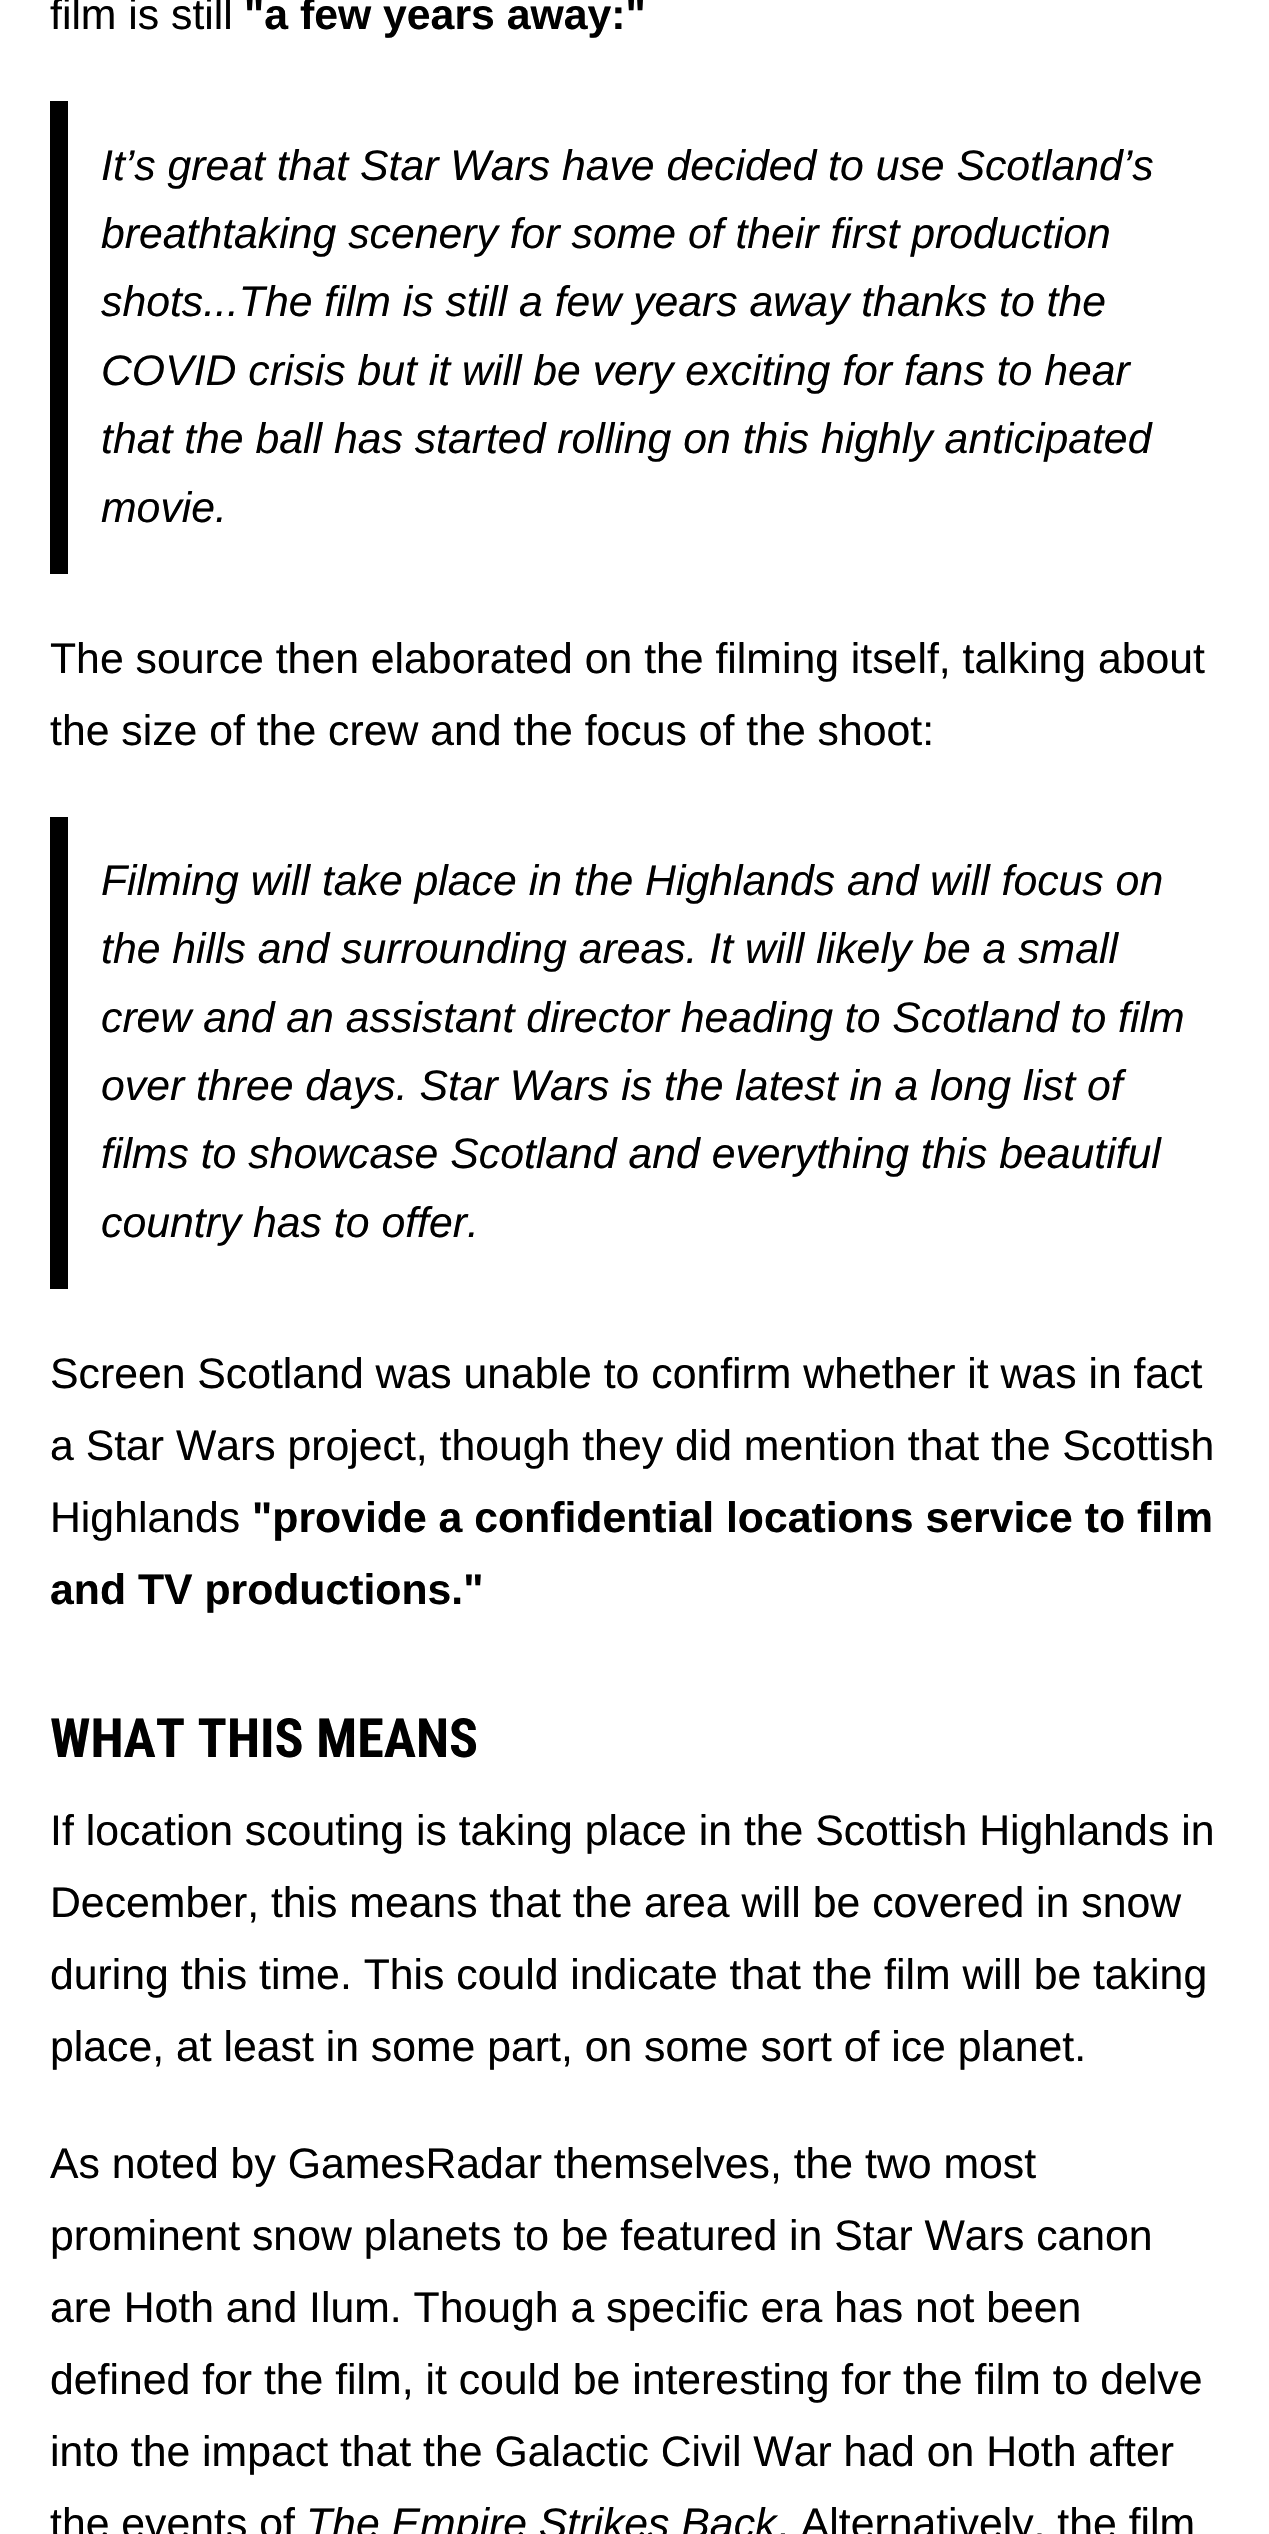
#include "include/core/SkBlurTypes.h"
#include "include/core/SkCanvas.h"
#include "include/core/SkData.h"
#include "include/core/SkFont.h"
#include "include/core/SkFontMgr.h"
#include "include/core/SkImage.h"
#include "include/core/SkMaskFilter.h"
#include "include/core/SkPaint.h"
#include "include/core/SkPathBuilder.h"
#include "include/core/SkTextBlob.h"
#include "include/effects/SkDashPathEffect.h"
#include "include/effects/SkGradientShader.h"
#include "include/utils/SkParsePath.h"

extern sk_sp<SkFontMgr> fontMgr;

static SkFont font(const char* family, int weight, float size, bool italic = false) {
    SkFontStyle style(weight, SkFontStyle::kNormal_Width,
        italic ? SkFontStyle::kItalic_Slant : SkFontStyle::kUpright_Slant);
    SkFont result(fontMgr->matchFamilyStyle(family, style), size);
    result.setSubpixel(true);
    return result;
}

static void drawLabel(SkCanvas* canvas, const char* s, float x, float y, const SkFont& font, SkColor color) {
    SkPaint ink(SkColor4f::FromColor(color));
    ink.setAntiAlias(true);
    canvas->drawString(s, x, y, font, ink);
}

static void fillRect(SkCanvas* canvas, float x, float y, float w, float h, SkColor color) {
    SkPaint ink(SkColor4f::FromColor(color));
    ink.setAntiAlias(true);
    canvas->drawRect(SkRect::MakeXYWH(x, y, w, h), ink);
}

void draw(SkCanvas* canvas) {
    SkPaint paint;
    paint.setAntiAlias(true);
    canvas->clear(0xFFFFFFFF);
    SkFont font1 = font("Liberation Sans", 400, 42.75f);
    drawLabel(canvas, "film is still", 50, 29, font1, 0xFF000000);
    SkFont font2 = font("Liberation Sans", 700, 42.75f);
    drawLabel(canvas, "\"a few years away:\"", 244, 29, font2, 0xFF000000);
    fillRect(canvas, 50, 101, 18, 473, 0xFF000000);
    SkFont font3 = font("Liberation Sans", 400, 42.75f, true);
    drawLabel(canvas, "It’s great that Star Wars have decided to use Scotland’s", 101, 180, font3, 0xFF000000);
    drawLabel(canvas, "breathtaking scenery for some of their first production", 101, 248, font3, 0xFF000000);
    drawLabel(canvas, "shots...The film is still a few years away thanks to the", 101, 316, font3, 0xFF000000);
    drawLabel(canvas, "COVID crisis but it will be very exciting for fans to hear", 101, 385, font3, 0xFF000000);
    drawLabel(canvas, "that the ball has started rolling on this highly anticipated", 101, 453, font3, 0xFF000000);
    drawLabel(canvas, "movie.", 101, 522, font3, 0xFF000000);
    drawLabel(canvas, "The source then elaborated on the filming itself, talking about", 50, 673, font1, 0xFF000000);
    drawLabel(canvas, "the size of the crew and the focus of the shoot:", 50, 745, font1, 0xFF000000);
    fillRect(canvas, 50, 817, 18, 472, 0xFF000000);
    drawLabel(canvas, "Filming will take place in the Highlands and will focus on", 101, 895, font3, 0xFF000000);
    drawLabel(canvas, "the hills and surrounding areas. It will likely be a small", 101, 963, font3, 0xFF000000);
    drawLabel(canvas, "crew and an assistant director heading to Scotland to film", 101, 1032, font3, 0xFF000000);
    drawLabel(canvas, "over three days. Star Wars is the latest in a long list of", 101, 1100, font3, 0xFF000000);
    drawLabel(canvas, "films to showcase Scotland and everything this beautiful", 101, 1168, font3, 0xFF000000);
    drawLabel(canvas, "country has to offer.", 101, 1237, font3, 0xFF000000);
    drawLabel(canvas, "Screen Scotland was unable to confirm whether it was in fact", 50, 1388, font1, 0xFF000000);
    drawLabel(canvas, "a Star Wars project, though they did mention that the Scottish", 50, 1460, font1, 0xFF000000);
    drawLabel(canvas, "Highlands", 50, 1532, font1, 0xFF000000);
    drawLabel(canvas, "\"provide a confidential locations service to film", 252, 1532, font2, 0xFF000000);
    drawLabel(canvas, "and TV productions.\"", 50, 1604, font2, 0xFF000000);
    SkFont font4 = font("Roboto Condensed", 700, 54);
    drawLabel(canvas, "WHAT THIS MEANS", 50, 1757, font4, 0xFF000000);
    drawLabel(canvas, "If location scouting is taking place in the Scottish Highlands in", 50, 1845, font1, 0xFF000000);
    drawLabel(canvas, "December, this means that the area will be covered in snow", 50, 1917, font1, 0xFF000000);
    drawLabel(canvas, "during this time. This could indicate that the film will be taking", 50, 1989, font1, 0xFF000000);
    drawLabel(canvas, "place, at least in some part, on some sort of ice planet.", 50, 2061, font1, 0xFF000000);
    drawLabel(canvas, "As noted by GamesRadar themselves, the two most", 50, 2178, font1, 0xFF000000);
    drawLabel(canvas, "prominent snow planets to be featured in Star Wars canon", 50, 2250, font1, 0xFF000000);
    drawLabel(canvas, "are Hoth and Ilum. Though a specific era has not been", 50, 2322, font1, 0xFF000000);
    drawLabel(canvas, "defined for the film, it could be interesting for the film to delve", 50, 2394, font1, 0xFF000000);
    drawLabel(canvas, "into the impact that the Galactic Civil War had on Hoth after", 50, 2466, font1, 0xFF000000);
    drawLabel(canvas, "the events of", 50, 2538, font1, 0xFF000000);
    drawLabel(canvas, "The Empire Strikes Back", 306, 2538, font3, 0xFF000000);
    drawLabel(canvas, ". Alternatively, the film", 777, 2538, font1, 0xFF000000);
}
